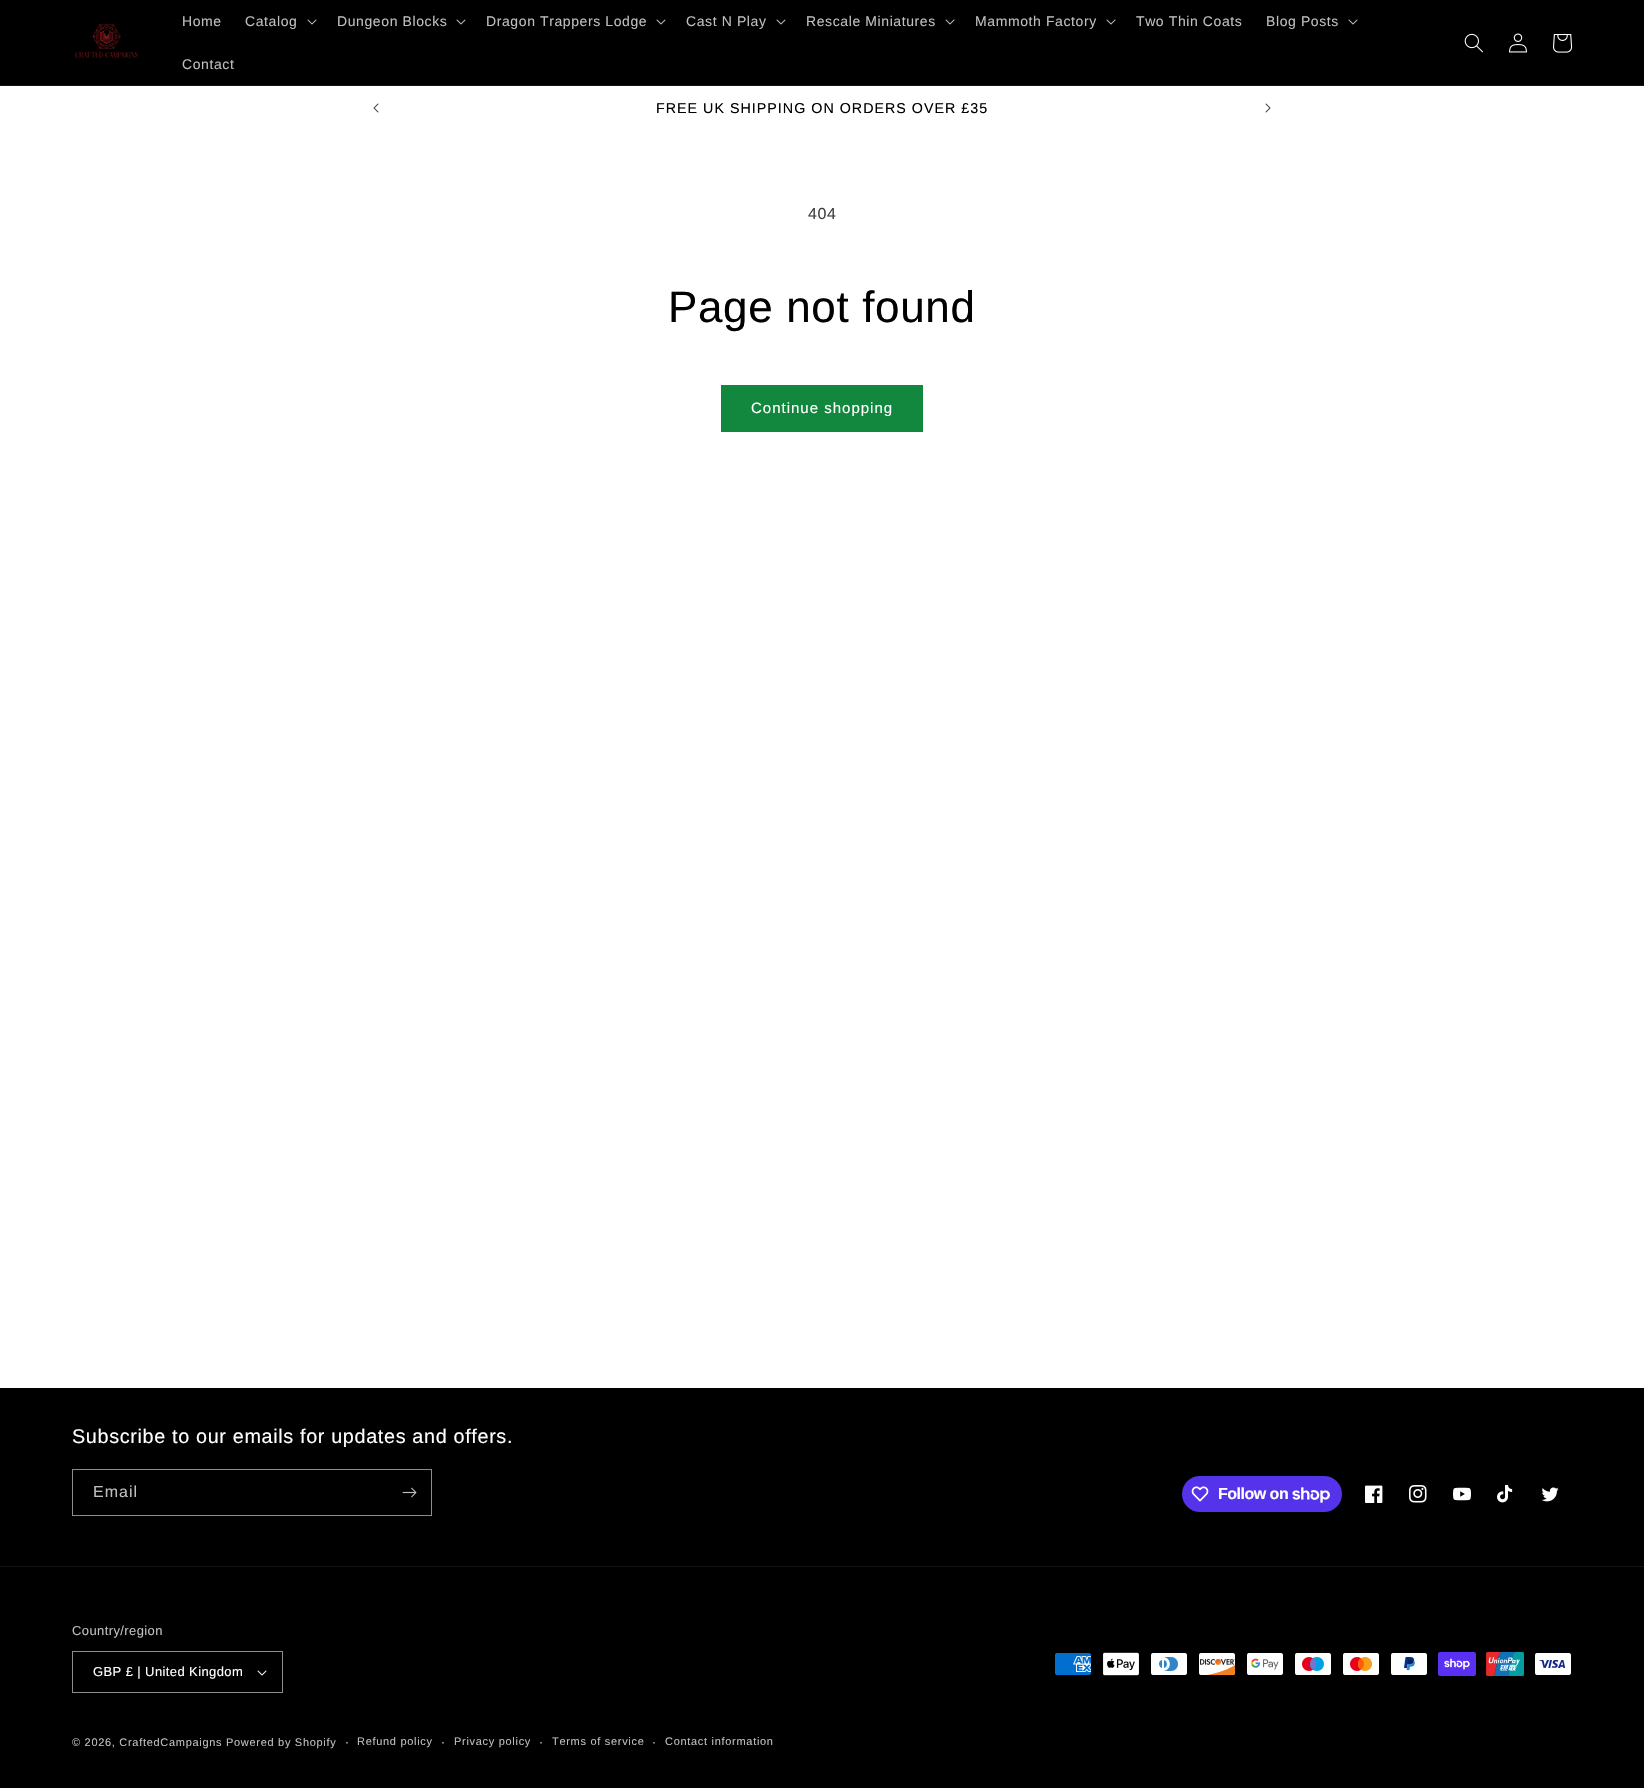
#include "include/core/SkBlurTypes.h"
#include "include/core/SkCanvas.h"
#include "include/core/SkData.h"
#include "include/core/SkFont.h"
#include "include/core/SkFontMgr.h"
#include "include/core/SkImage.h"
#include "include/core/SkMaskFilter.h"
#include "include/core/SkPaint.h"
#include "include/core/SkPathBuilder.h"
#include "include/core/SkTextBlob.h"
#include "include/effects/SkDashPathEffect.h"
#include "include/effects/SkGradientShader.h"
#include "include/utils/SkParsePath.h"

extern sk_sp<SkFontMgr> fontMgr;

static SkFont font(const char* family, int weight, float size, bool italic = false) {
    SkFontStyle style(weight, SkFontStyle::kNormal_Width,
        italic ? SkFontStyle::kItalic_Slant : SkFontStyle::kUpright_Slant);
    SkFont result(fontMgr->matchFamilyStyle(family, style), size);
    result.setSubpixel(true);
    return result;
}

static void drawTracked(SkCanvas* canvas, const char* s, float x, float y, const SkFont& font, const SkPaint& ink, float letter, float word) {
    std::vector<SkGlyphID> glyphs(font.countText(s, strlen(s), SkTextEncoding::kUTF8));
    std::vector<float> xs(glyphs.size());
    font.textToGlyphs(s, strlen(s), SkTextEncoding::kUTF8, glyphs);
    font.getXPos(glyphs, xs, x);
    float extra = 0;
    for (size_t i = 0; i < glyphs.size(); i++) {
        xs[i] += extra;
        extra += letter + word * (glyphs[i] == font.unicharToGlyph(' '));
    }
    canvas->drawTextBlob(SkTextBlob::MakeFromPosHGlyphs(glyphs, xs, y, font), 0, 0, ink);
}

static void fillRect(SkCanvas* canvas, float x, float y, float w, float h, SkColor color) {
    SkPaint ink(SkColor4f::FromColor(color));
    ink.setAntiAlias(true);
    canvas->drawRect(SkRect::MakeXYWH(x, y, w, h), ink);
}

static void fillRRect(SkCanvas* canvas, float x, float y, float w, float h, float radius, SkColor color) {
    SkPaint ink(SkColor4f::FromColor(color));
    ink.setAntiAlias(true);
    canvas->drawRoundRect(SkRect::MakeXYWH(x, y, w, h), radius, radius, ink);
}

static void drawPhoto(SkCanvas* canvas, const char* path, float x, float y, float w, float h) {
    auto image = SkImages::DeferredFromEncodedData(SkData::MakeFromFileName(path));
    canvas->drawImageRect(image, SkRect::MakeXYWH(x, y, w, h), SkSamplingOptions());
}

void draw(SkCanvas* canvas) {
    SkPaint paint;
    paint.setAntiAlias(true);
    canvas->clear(0xFFFFFFFF);
    fillRect(canvas, 0, 0, 1644, 85, 0xFF000000);
    fillRect(canvas, 0, 85, 1644, 1, 0xFF141414);
    drawPhoto(canvas, "assets/img1.png", 75, 24, 64, 34);
    SkFont font1 = font("Arimo", 400, 14);
    paint.setColor(0xFFBFBFBF);
    drawTracked(canvas, "Home", 182, 26, font1, paint, 0.6f, 0);
    drawTracked(canvas, "Catalog", 245, 26, font1, paint, 0.6f, 0);
    drawPhoto(canvas, "assets/img2.png", 307, 19, 10, 6);
    drawTracked(canvas, "Dungeon Blocks", 337, 26, font1, paint, 0.6f, 0);
    drawPhoto(canvas, "assets/img2.png", 456, 19, 10, 6);
    drawTracked(canvas, "Dragon Trappers Lodge", 486, 26, font1, paint, 0.6f, 0);
    drawPhoto(canvas, "assets/img2.png", 656, 19, 10, 6);
    drawTracked(canvas, "Cast N Play", 686, 26, font1, paint, 0.6f, 0);
    drawPhoto(canvas, "assets/img2.png", 776, 19, 10, 6);
    drawTracked(canvas, "Rescale Miniatures", 806, 26, font1, paint, 0.6f, 0);
    drawPhoto(canvas, "assets/img2.png", 945, 19, 10, 6);
    drawTracked(canvas, "Mammoth Factory", 975, 26, font1, paint, 0.6f, 0);
    drawPhoto(canvas, "assets/img2.png", 1106, 19, 10, 6);
    drawTracked(canvas, "Two Thin Coats", 1136, 26, font1, paint, 0.6f, 0);
    drawTracked(canvas, "Blog Posts", 1266, 26, font1, paint, 0.6f, 0);
    drawPhoto(canvas, "assets/img2.png", 1348, 19, 10, 6);
    drawTracked(canvas, "Contact", 182, 69, font1, paint, 0.6f, 0);
    drawPhoto(canvas, "assets/img3.png", 1464, 33, 19, 20);
    drawPhoto(canvas, "assets/img4.png", 1509, 33, 18, 20);
    drawPhoto(canvas, "assets/img5.png", 1553, 34, 20, 19);
    drawPhoto(canvas, "assets/img6.png", 373, 103, 6, 10);
    SkFont font2 = font("Arimo", 400, 14.3f);
    paint.setColor(0xFF000000);
    drawTracked(canvas, "FREE UK SHIPPING ON ORDERS OVER £35", 656, 113, font2, paint, 1, 0);
    drawPhoto(canvas, "assets/img7.png", 1265, 103, 6, 10);
    SkFont font3 = font("Arimo", 400, 16);
    paint.setColor(0xFF404040);
    drawTracked(canvas, "404", 808, 219, font3, paint, 0.6f, 0);
    SkFont font4 = font("Arimo", 400, 44);
    paint.setColor(0xFF000000);
    drawTracked(canvas, "Page not found", 668, 322, font4, paint, 0.65f, 0);
    fillRect(canvas, 721, 385, 202, 47, 0xFF12873E);
    SkFont font5 = font("Arimo", 400, 15);
    paint.setColor(0xFFFFFFFF);
    drawTracked(canvas, "Continue shopping", 751, 413, font5, paint, 1, 0);
    fillRect(canvas, 0, 1388, 1644, 400, 0xFF000000);
    SkFont font6 = font("Arimo", 400, 19.8f);
    drawTracked(canvas, "Subscribe to our emails for updates and offers.", 72, 1443, font6, paint, 0.65f, 0);
    paint.setStroke(true);
    paint.setStrokeWidth(1);
    paint.setColor(0xFF8C8C8C);
    canvas->drawRect(SkRect::MakeXYWH(72.5f, 1469.5f, 359, 46), paint);
    paint.setStroke(false);
    paint.setColor(0xFFBFBFBF);
    drawTracked(canvas, "Email", 93, 1497, font3, paint, 1, 0);
    drawPhoto(canvas, "assets/img8.png", 402, 1487, 15, 11);
    fillRRect(canvas, 1182, 1476, 160, 36, 18, 0xFF5433EB);
    drawPhoto(canvas, "assets/img9.png", 1191, 1486, 18, 16);
    SkFont font7 = font("Liberation Sans", 700, 16);
    paint.setColor(0xFFFFFFFF);
    drawTracked(canvas, "Follow on", 1218, 1499, font7, paint, -0.5f, 0);
    drawPhoto(canvas, "assets/img10.png", 1292, 1487, 38, 16);
    drawPhoto(canvas, "assets/img11.png", 1365, 1485, 18, 18);
    drawPhoto(canvas, "assets/img12.png", 1409, 1485, 18, 18);
    drawPhoto(canvas, "assets/img13.png", 1453, 1487, 18, 14);
    drawPhoto(canvas, "assets/img14.png", 1497, 1485, 16, 18);
    drawPhoto(canvas, "assets/img15.png", 1541, 1487, 18, 15);
    fillRect(canvas, 0, 1566, 1644, 1, 0xFF141414);
    SkFont font8 = font("Arimo", 400, 13);
    paint.setColor(0xFFBFBFBF);
    drawTracked(canvas, "Country/region", 72, 1635, font8, paint, 0.4f, 0);
    drawPhoto(canvas, "assets/img16.png", 257, 1670, 10, 6);
    paint.setStroke(true);
    paint.setColor(0xFF8C8C8C);
    canvas->drawRect(SkRect::MakeXYWH(72.5f, 1651.5f, 210, 41), paint);
    paint.setStroke(false);
    paint.setColor(0xFFFFFFFF);
    drawTracked(canvas, "GBP £ | United Kingdom", 93, 1676, font8, paint, 0.4f, 0);
    drawPhoto(canvas, "assets/img17.png", 1055, 1653, 36, 22);
    drawPhoto(canvas, "assets/img18.png", 1103, 1652, 36, 24);
    drawPhoto(canvas, "assets/img19.png", 1151, 1653, 36, 22);
    drawPhoto(canvas, "assets/img20.png", 1199, 1653, 37, 22);
    drawPhoto(canvas, "assets/img21.png", 1247, 1653, 36, 22);
    drawPhoto(canvas, "assets/img22.png", 1295, 1653, 36, 22);
    drawPhoto(canvas, "assets/img23.png", 1343, 1653, 36, 22);
    drawPhoto(canvas, "assets/img24.png", 1391, 1653, 36, 22);
    drawPhoto(canvas, "assets/img25.png", 1438, 1652, 38, 24);
    drawPhoto(canvas, "assets/img26.png", 1486, 1652, 38, 24);
    drawPhoto(canvas, "assets/img27.png", 1535, 1653, 36, 22);
    SkFont font9 = font("Arimo", 400, 11);
    paint.setColor(0xFFBFBFBF);
    drawTracked(canvas, "© 2026, CraftedCampaigns", 72, 1746, font9, paint, 0.7f, 0);
    drawTracked(canvas, "Powered by Shopify", 226, 1746, font9, paint, 0.7f, 0);
    SkFont font10 = font("Arimo", 400, 12);
    drawTracked(canvas, "·", 345, 1746, font10, paint, 0.7f, 0);
    drawTracked(canvas, "Refund policy", 357, 1745, font9, paint, 0.7f, 0);
    drawTracked(canvas, "·", 441, 1746, font10, paint, 0.7f, 0);
    drawTracked(canvas, "Privacy policy", 454, 1745, font9, paint, 0.7f, 0);
    drawTracked(canvas, "·", 539, 1746, font10, paint, 0.7f, 0);
    drawTracked(canvas, "Terms of service", 552, 1745, font9, paint, 0.7f, 0);
    drawTracked(canvas, "·", 652, 1746, font10, paint, 0.7f, 0);
    drawTracked(canvas, "Contact information", 665, 1745, font9, paint, 0.7f, 0);
}
